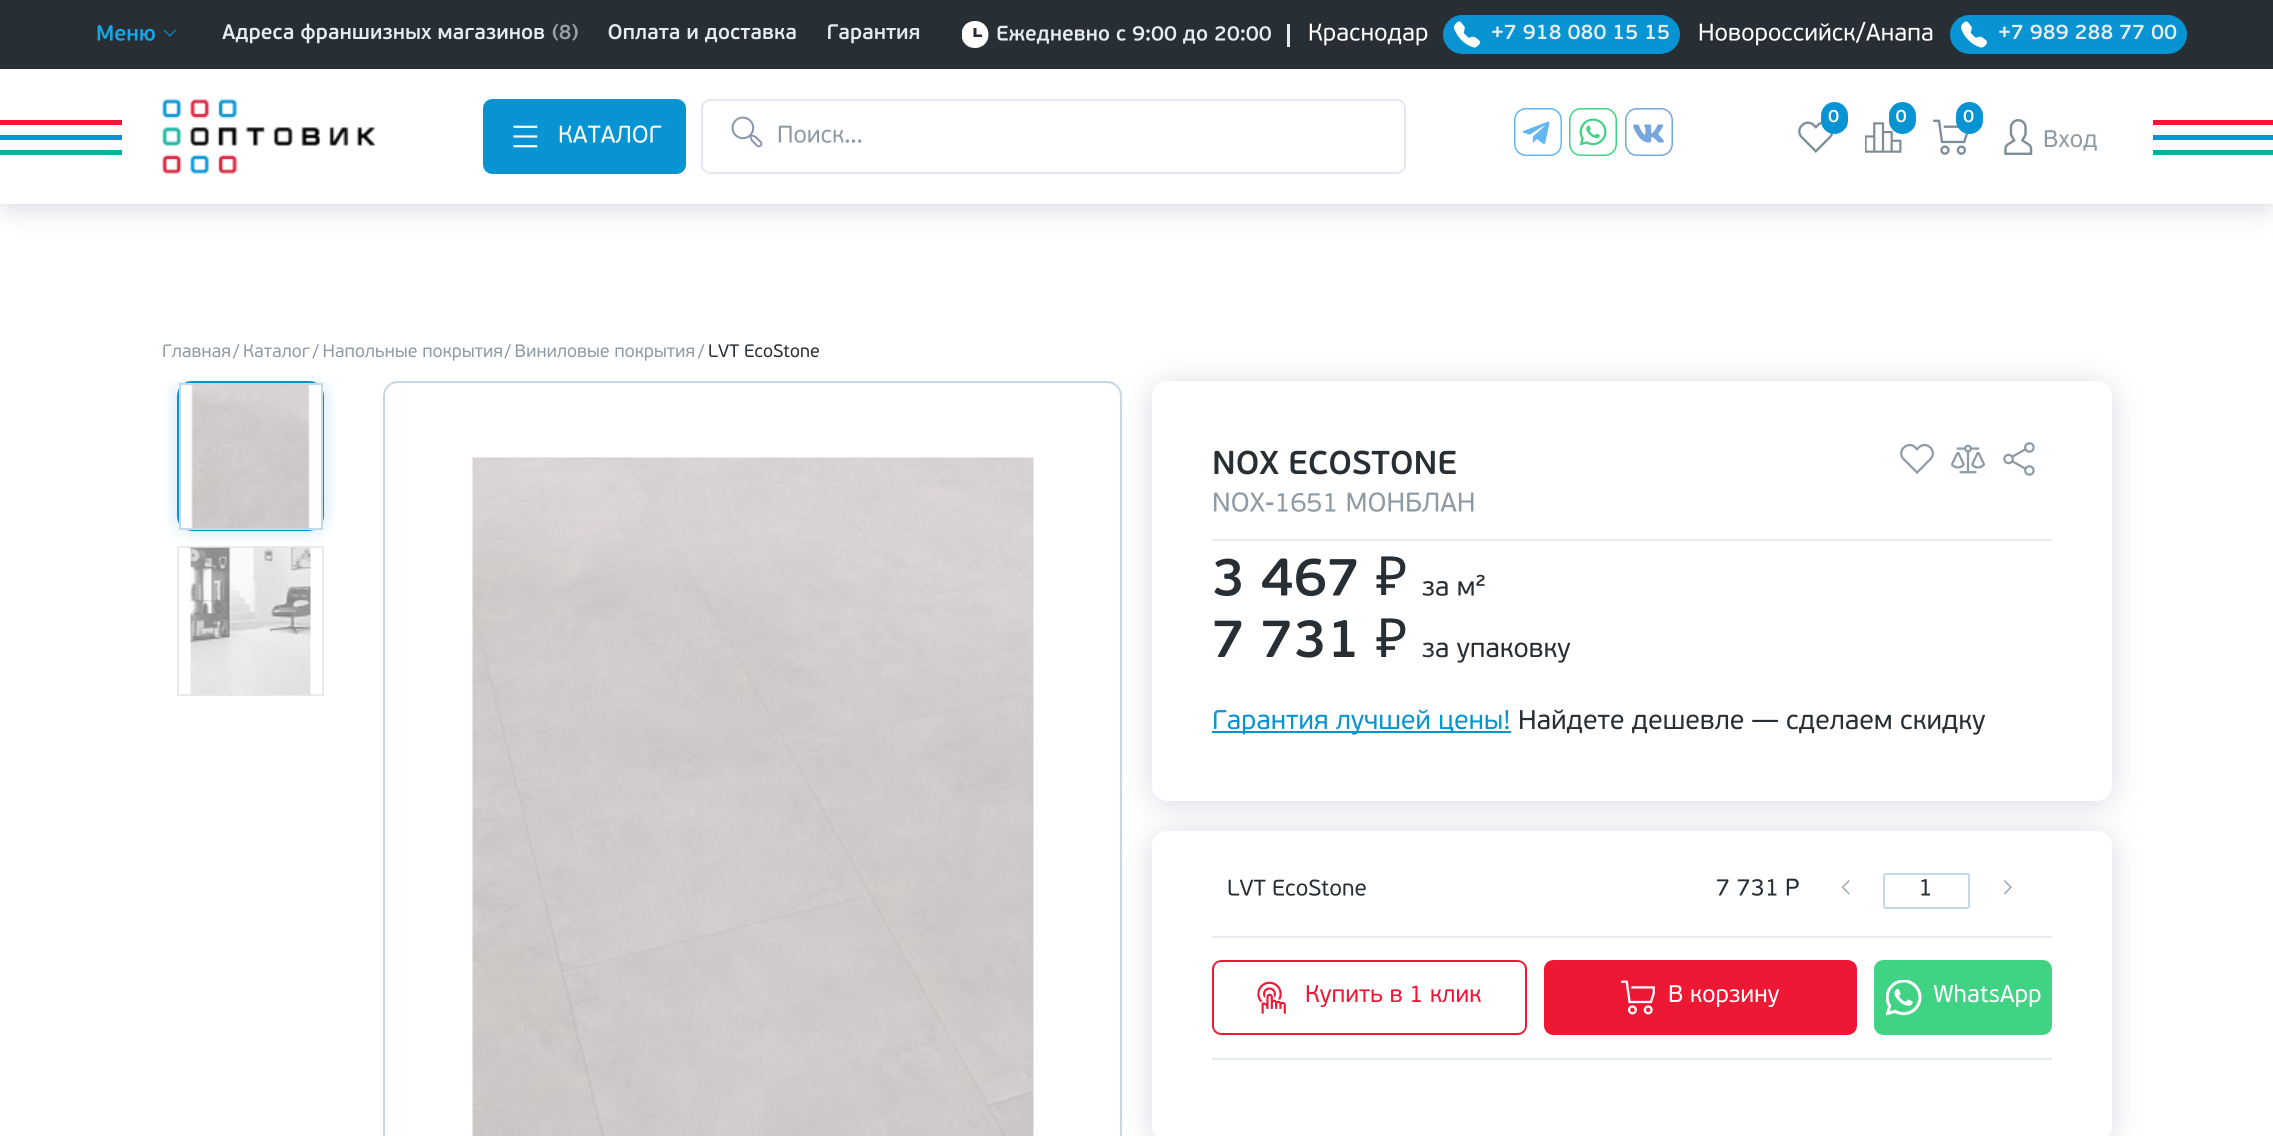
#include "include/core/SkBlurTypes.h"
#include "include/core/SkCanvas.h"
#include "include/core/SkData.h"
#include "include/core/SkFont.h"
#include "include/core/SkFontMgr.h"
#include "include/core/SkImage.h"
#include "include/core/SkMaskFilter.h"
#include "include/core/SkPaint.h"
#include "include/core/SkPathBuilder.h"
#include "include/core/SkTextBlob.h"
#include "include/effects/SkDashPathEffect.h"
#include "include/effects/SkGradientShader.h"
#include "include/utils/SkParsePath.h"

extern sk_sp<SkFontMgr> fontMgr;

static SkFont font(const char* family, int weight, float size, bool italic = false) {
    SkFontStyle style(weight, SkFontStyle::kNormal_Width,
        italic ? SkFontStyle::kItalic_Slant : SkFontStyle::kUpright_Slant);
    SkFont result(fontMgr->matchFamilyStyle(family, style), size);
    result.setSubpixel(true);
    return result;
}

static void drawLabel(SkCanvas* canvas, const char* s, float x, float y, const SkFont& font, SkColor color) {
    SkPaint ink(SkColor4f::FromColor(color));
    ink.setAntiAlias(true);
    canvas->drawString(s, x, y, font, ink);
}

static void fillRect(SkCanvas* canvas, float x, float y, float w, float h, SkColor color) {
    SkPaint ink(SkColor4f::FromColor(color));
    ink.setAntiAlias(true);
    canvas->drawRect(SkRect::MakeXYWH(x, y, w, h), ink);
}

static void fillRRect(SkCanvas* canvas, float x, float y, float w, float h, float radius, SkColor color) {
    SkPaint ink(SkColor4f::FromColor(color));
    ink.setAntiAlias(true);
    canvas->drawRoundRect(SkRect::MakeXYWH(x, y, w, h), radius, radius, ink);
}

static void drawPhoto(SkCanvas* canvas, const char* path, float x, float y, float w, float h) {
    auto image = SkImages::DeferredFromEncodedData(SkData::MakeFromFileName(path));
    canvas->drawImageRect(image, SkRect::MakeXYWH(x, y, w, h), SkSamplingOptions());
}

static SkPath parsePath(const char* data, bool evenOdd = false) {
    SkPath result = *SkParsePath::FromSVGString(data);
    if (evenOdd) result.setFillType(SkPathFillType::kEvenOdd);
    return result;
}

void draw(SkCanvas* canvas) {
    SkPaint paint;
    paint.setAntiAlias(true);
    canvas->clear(0xFFFFFFFF);
    paint.setColor(0x4D8F96B0);
    paint.setMaskFilter(SkMaskFilter::MakeBlur(kNormal_SkBlurStyle, 11));
    canvas->drawRect(SkRect::MakeXYWH(0, 8, 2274, 204), paint);
    paint.setMaskFilter(nullptr);
    fillRect(canvas, 0, 69, 2273, 135, 0xFFFFFFFF);
    fillRect(canvas, 0, 0, 2273, 69, 0xFF272F35);
    drawPhoto(canvas, "assets/img1.png", 97, 25, 58, 16);
    drawPhoto(canvas, "assets/img2.png", 163, 29, 13, 8);
    drawPhoto(canvas, "assets/img3.png", 222, 23, 323, 21);
    drawPhoto(canvas, "assets/img4.png", 552, 23, 26, 18);
    drawPhoto(canvas, "assets/img5.png", 608, 24, 188, 19);
    drawPhoto(canvas, "assets/img6.png", 828, 24, 92, 20);
    canvas->save();
    canvas->clipRect(SkRect::MakeXYWH(962, 21, 27, 27));
    paint.setColor(0xFFFFFFFF);
    canvas->drawPath(parsePath("M975 48C957 48 957 21 975 21C993 21 993 48 975 48ZM976.5 34.5V28H973.5V37H982V34.5Z"), paint);
    canvas->restore();
    drawPhoto(canvas, "assets/img7.png", 997, 25, 274, 19);
    fillRect(canvas, 1287, 24, 3, 23, 0xFFE6EDF1);
    drawPhoto(canvas, "assets/img8.png", 1309, 23, 119, 23);
    fillRRect(canvas, 1443, 15, 237, 39, 19.5f, 0xFF0894D3);
    drawPhoto(canvas, "assets/img9.png", 1454, 21, 26, 27);
    drawPhoto(canvas, "assets/img10.png", 1492, 24, 177, 16);
    drawPhoto(canvas, "assets/img11.png", 1699, 21, 234, 25);
    fillRRect(canvas, 1950, 15, 237, 39, 19.5f, 0xFF0894D3);
    drawPhoto(canvas, "assets/img9.png", 1961, 21, 26, 27);
    drawPhoto(canvas, "assets/img12.png", 1999, 24, 178, 16);
    fillRect(canvas, 0, 120, 122, 5, 0xFFEE1835);
    fillRect(canvas, 0, 135, 122, 5, 0xFF0894D3);
    fillRect(canvas, 0, 150, 122, 5, 0xFF00B49E);
    drawPhoto(canvas, "assets/img13.png", 162, 99, 213, 75);
    paint.setColor(0xFF0894D3);
    canvas->drawRoundRect(SkRect::MakeXYWH(484, 100, 201, 73), 8, 8, paint);
    paint.setStroke(true);
    paint.setStrokeWidth(2);
    canvas->drawRoundRect(SkRect::MakeXYWH(484, 100, 201, 73), 8, 8, paint);
    drawPhoto(canvas, "assets/img14.png", 513, 125, 25, 23);
    drawPhoto(canvas, "assets/img15.png", 559, 125, 103, 18);
    paint.setColor(0xFFE3E6F3);
    canvas->drawRoundRect(SkRect::MakeXYWH(702, 100, 703, 73), 8, 8, paint);
    drawPhoto(canvas, "assets/img16.png", 778, 125, 84, 18);
    drawPhoto(canvas, "assets/img17.png", 731, 116, 32, 32);
    drawPhoto(canvas, "assets/img18.png", 1514, 108, 48, 48);
    drawPhoto(canvas, "assets/img19.png", 1569, 108, 48, 48);
    drawPhoto(canvas, "assets/img20.png", 1625, 108, 48, 48);
    drawPhoto(canvas, "assets/img21.png", 1798, 121, 36, 32);
    fillRRect(canvas, 1821, 102, 27, 32, 13.5f, 0xFF0894D3);
    drawPhoto(canvas, "assets/img22.png", 1828, 109, 11, 14);
    drawPhoto(canvas, "assets/img24.png", 1865, 122, 37, 31);
    fillRRect(canvas, 1889, 102, 27, 32, 13.5f, 0xFF0894D3);
    drawPhoto(canvas, "assets/img23.png", 1896, 109, 10, 14);
    drawPhoto(canvas, "assets/img25.png", 1933, 119, 36, 36);
    fillRRect(canvas, 1956, 102, 27, 32, 13.5f, 0xFF0894D3);
    drawPhoto(canvas, "assets/img22.png", 1963, 109, 11, 14);
    drawPhoto(canvas, "assets/img26.png", 2004, 119, 29, 36);
    drawPhoto(canvas, "assets/img27.png", 2044, 130, 53, 21);
    fillRect(canvas, 2153, 120, 120, 5, 0xFFEE1835);
    fillRect(canvas, 2153, 135, 120, 5, 0xFF0894D3);
    fillRect(canvas, 2153, 150, 120, 5, 0xFF00B49E);
    drawPhoto(canvas, "assets/img28.png", 163, 344, 67, 14);
    drawPhoto(canvas, "assets/img29.png", 232, 344, 8, 15);
    drawPhoto(canvas, "assets/img30.png", 244, 344, 66, 14);
    drawPhoto(canvas, "assets/img31.png", 312, 344, 7, 15);
    drawPhoto(canvas, "assets/img32.png", 323, 344, 179, 17);
    drawPhoto(canvas, "assets/img31.png", 504, 344, 7, 15);
    drawPhoto(canvas, "assets/img33.png", 515, 344, 179, 17);
    drawPhoto(canvas, "assets/img29.png", 697, 344, 8, 15);
    drawPhoto(canvas, "assets/img34.png", 709, 344, 110, 14);
    canvas->save();
    canvas->clipRect(SkRect::MakeXYWH(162, 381, 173, 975));
    paint.setStroke(false);
    paint.setColor(0x400894D3);
    paint.setMaskFilter(SkMaskFilter::MakeBlur(kNormal_SkBlurStyle, 9));
    canvas->drawRoundRect(SkRect::MakeXYWH(177, 381, 147, 150), 15, 15, paint);
    paint.setMaskFilter(nullptr);
    canvas->restore();
    paint.setStroke(true);
    paint.setColor(0xFF0894D3);
    canvas->drawRoundRect(SkRect::MakeXYWH(178, 382, 145, 148), 14, 14, paint);
    paint.setStroke(false);
    paint.setColor(0xFFFFFFFF);
    canvas->drawRect(SkRect::MakeXYWH(180, 384, 142, 145), paint);
    paint.setStroke(true);
    paint.setColor(0xFFC5D8E7);
    canvas->drawRect(SkRect::MakeXYWH(180, 384, 142, 145), paint);
    drawPhoto(canvas, "assets/img35.png", 191, 384, 119, 144);
    paint.setColor(0x80D5D5D5);
    canvas->drawRect(SkRect::MakeXYWH(178, 547, 145, 148), paint);
    drawPhoto(canvas, "assets/img36.png", 190, 547, 121, 148);
    paint.setStroke(false);
    paint.setColor(0x598F96B0);
    paint.setMaskFilter(SkMaskFilter::MakeBlur(kNormal_SkBlurStyle, 15));
    canvas->drawRoundRect(SkRect::MakeXYWH(1152, 384, 960, 420), 15, 15, paint);
    paint.setMaskFilter(nullptr);
    fillRRect(canvas, 1152, 381, 960, 420, 15, 0xFFFFFFFF);
    paint.setMaskFilter(SkMaskFilter::MakeBlur(kNormal_SkBlurStyle, 15));
    canvas->drawRoundRect(SkRect::MakeXYWH(1152, 834, 960, 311), 15, 15, paint);
    paint.setMaskFilter(nullptr);
    paint.setStroke(true);
    paint.setColor(0xFFC5D8E7);
    canvas->drawRoundRect(SkRect::MakeXYWH(384, 382, 737, 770), 14, 14, paint);
    drawPhoto(canvas, "assets/img37.png", 472, 457, 562, 679);
    drawPhoto(canvas, "assets/img38.png", 1214, 450, 242, 25);
    drawPhoto(canvas, "assets/img39.png", 1214, 492, 260, 20);
    drawPhoto(canvas, "assets/img40.png", 1900, 443, 34, 31);
    drawPhoto(canvas, "assets/img41.png", 1951, 444, 34, 30);
    drawPhoto(canvas, "assets/img42.png", 2003, 442, 32, 34);
    fillRect(canvas, 1212, 539, 840, 2, 0xFFE6EDF1);
    drawPhoto(canvas, "assets/img43.png", 1214, 558, 143, 39);
    SkFont font1 = font("Noto Sans", 400, 54);
    drawLabel(canvas, "₽", 1376, 595, font1, 0xFF272F35);
    drawPhoto(canvas, "assets/img44.png", 1422, 574, 63, 22);
    drawPhoto(canvas, "assets/img45.png", 1214, 620, 141, 38);
    drawLabel(canvas, "₽", 1376, 657, font1, 0xFF272F35);
    drawPhoto(canvas, "assets/img46.png", 1422, 642, 149, 21);
    fillRect(canvas, 1212, 731, 299, 2, 0xFF0894D3);
    drawPhoto(canvas, "assets/img47.png", 1214, 709, 295, 26);
    drawPhoto(canvas, "assets/img48.png", 1520, 709, 466, 26);
    fillRRect(canvas, 1152, 831, 960, 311, 15, 0xFFFFFFFF);
    drawPhoto(canvas, "assets/img49.png", 1228, 879, 138, 17);
    drawPhoto(canvas, "assets/img50.png", 1717, 879, 60, 17);
    drawPhoto(canvas, "assets/img51.png", 1786, 878, 13, 18);
    drawPhoto(canvas, "assets/img52.png", 1841, 880, 9, 15);
    canvas->drawRoundRect(SkRect::MakeXYWH(1884, 874, 85, 34), 2, 2, paint);
    drawPhoto(canvas, "assets/img53.png", 1921, 879, 9, 17);
    drawPhoto(canvas, "assets/img54.png", 2003, 880, 9, 15);
    fillRect(canvas, 1212, 936, 840, 2, 0xFFE6EDF1);
    paint.setColor(0xFFEE1835);
    canvas->drawRoundRect(SkRect::MakeXYWH(1213, 961, 313, 73), 8, 8, paint);
    drawPhoto(canvas, "assets/img55.png", 1257, 981, 29, 33);
    drawPhoto(canvas, "assets/img56.png", 1306, 985, 175, 22);
    paint.setStroke(false);
    canvas->drawRoundRect(SkRect::MakeXYWH(1545, 961, 311, 73), 8, 8, paint);
    paint.setStroke(true);
    canvas->drawRoundRect(SkRect::MakeXYWH(1545, 961, 311, 73), 8, 8, paint);
    drawPhoto(canvas, "assets/img57.png", 1621, 980, 34, 35);
    drawPhoto(canvas, "assets/img58.png", 1669, 985, 111, 22);
    paint.setStroke(false);
    paint.setColor(0xFF41D384);
    canvas->drawRoundRect(SkRect::MakeXYWH(1875, 961, 176, 73), 8, 8, paint);
    paint.setStroke(true);
    canvas->drawRoundRect(SkRect::MakeXYWH(1875, 961, 176, 73), 8, 8, paint);
    drawPhoto(canvas, "assets/img59.png", 1886, 980, 36, 36);
    drawPhoto(canvas, "assets/img60.png", 1933, 984, 108, 23);
    fillRect(canvas, 1212, 1058, 840, 2, 0xFFE6EDF1);
}
